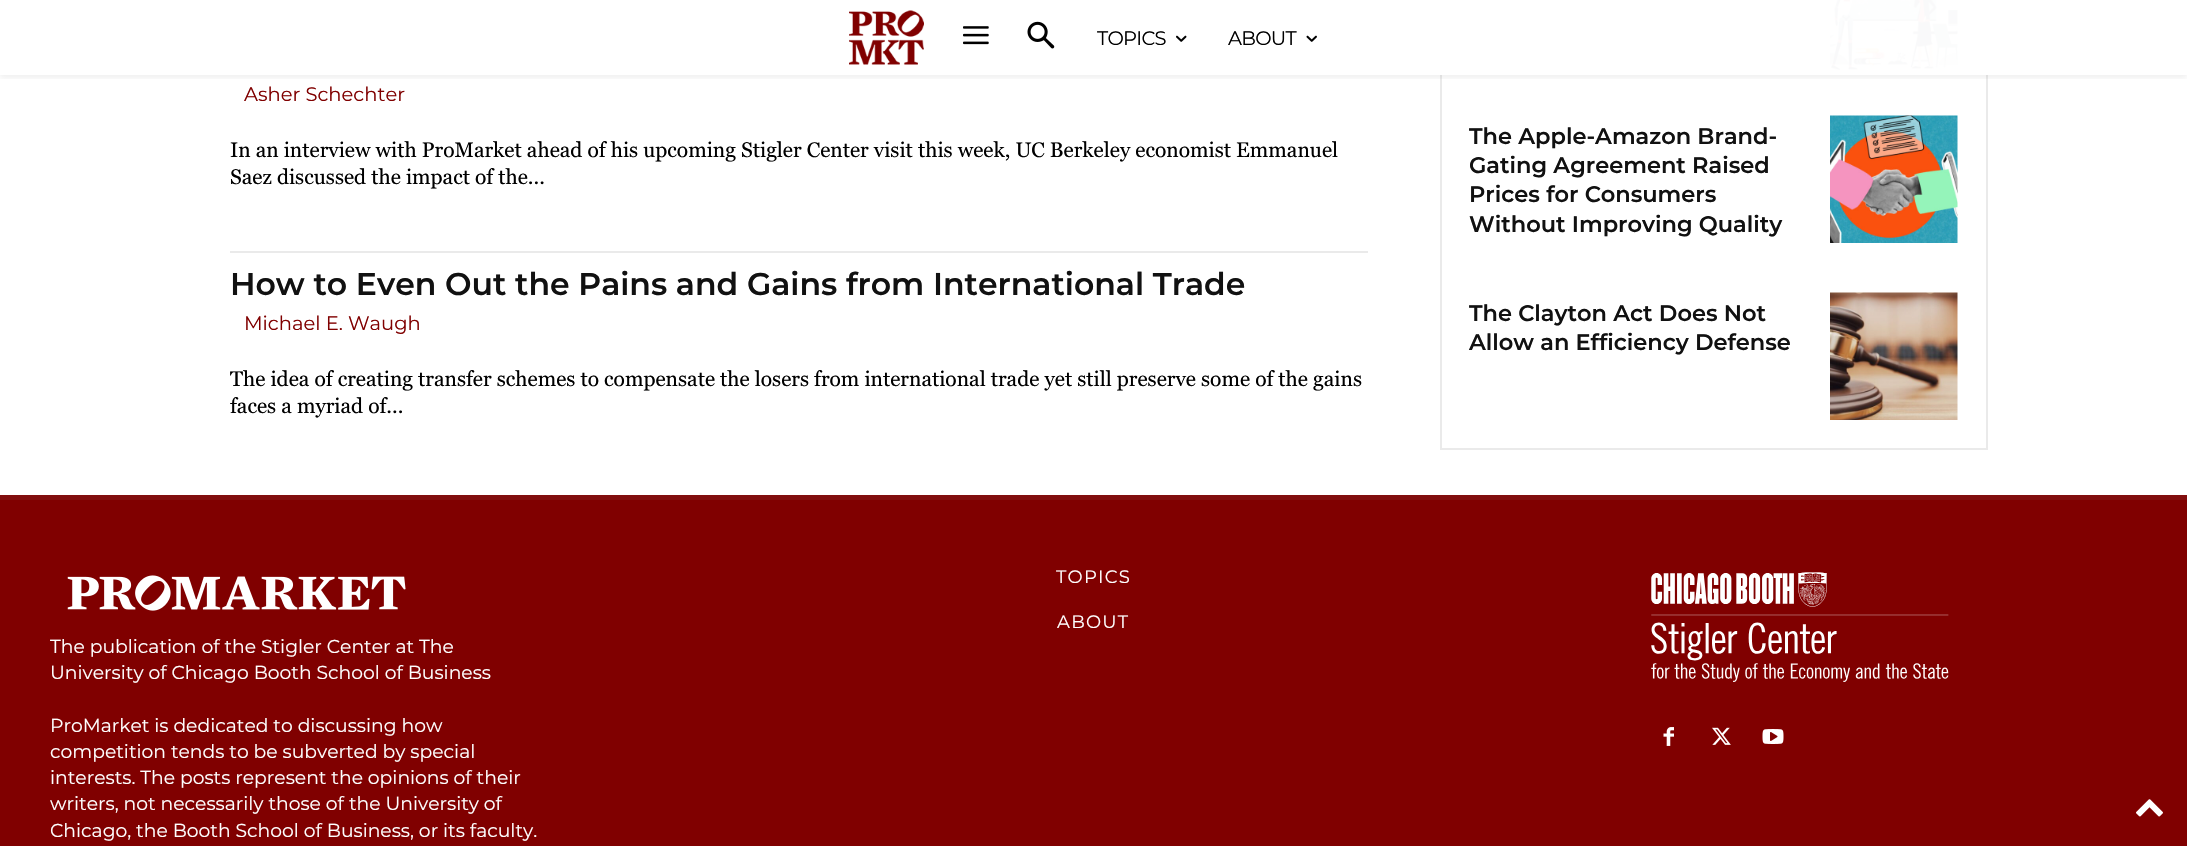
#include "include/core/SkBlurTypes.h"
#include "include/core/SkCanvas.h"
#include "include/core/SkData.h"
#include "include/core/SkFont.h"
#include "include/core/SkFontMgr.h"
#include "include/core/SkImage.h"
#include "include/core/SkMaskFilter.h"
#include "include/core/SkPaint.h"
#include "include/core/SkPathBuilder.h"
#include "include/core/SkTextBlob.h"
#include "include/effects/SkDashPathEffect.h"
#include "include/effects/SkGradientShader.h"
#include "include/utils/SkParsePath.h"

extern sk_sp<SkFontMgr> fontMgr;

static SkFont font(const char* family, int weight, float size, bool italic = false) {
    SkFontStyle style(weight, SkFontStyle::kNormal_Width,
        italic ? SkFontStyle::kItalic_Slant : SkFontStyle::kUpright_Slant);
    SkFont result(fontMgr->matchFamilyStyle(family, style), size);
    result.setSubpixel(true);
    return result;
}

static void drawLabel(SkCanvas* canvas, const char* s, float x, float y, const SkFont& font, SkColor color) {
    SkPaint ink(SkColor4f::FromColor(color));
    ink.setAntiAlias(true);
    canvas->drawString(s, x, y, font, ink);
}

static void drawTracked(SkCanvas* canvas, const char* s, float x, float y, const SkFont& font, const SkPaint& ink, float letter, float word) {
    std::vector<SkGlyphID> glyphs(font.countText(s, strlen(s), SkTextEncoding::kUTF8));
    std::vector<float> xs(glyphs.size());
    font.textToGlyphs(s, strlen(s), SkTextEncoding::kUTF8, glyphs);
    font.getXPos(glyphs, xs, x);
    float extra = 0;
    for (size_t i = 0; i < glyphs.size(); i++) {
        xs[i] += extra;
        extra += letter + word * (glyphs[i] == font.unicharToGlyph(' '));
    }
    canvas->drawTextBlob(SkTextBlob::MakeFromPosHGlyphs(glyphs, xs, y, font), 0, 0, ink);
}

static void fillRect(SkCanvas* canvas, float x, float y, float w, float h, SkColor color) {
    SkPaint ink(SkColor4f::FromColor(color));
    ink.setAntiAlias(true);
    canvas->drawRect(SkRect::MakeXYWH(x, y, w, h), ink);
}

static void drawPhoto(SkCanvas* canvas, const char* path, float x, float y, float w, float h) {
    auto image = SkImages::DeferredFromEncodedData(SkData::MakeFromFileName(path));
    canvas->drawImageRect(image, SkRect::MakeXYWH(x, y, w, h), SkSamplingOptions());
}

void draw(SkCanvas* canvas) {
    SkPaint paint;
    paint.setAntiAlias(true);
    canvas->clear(0xFFFFFFFF);
    drawPhoto(canvas, "assets/img1.png", 849, 10, 75, 55);
    drawPhoto(canvas, "assets/img2.png", 963, 26, 26, 19);
    drawPhoto(canvas, "assets/img3.png", 1027, 21, 28, 28);
    paint.setStroke(true);
    paint.setStrokeWidth(2);
    paint.setColor(0xFFEAEAEA);
    canvas->drawRect(SkRect::MakeXYWH(1441, -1, 546, 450), paint);
    drawPhoto(canvas, "assets/img6.png", 1830, 0, 128, 71);
    fillRect(canvas, 1440, 0, 548, 75, 0xF7FFFFFF);
    canvas->save();
    canvas->clipRect(SkRect::MakeXYWH(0, 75, 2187, 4));
    paint.setStroke(false);
    paint.setColor(0x0F000000);
    paint.setMaskFilter(SkMaskFilter::MakeBlur(kNormal_SkBlurStyle, 3));
    canvas->drawRect(SkRect::MakeXYWH(0, 3, 2187, 75), paint);
    paint.setMaskFilter(nullptr);
    canvas->restore();
    SkFont font1 = font("Montserrat", 400, 19.5f);
    paint.setColor(0xFF000000);
    drawTracked(canvas, "TOPICS", 1097, 45, font1, paint, -0.75f, 0);
    drawPhoto(canvas, "assets/img4.png", 1176, 35, 11, 7);
    drawTracked(canvas, "ABOUT", 1228, 45, font1, paint, -0.75f, 0);
    drawPhoto(canvas, "assets/img5.png", 1306, 35, 11, 7);
    drawLabel(canvas, "Asher Schechter", 244, 101, font1, 0xFF800000);
    SkFont font2 = font("Georgia", 400, 21);
    drawLabel(canvas, "In an interview with ProMarket ahead of his upcoming Stigler Center visit this week, UC Berkeley economist Emmanuel", 230, 157, font2, 0xFF000000);
    drawLabel(canvas, "Saez discussed the impact of the...", 230, 184, font2, 0xFF000000);
    fillRect(canvas, 230, 251, 1138, 2, 0xFFEAEAEA);
    SkFont font3 = font("Montserrat", 600, 31.5f);
    drawLabel(canvas, "How to Even Out the Pains and Gains from International Trade", 230, 295, font3, 0xFF111111);
    drawLabel(canvas, "Michael E. Waugh", 244, 330, font1, 0xFF800000);
    drawLabel(canvas, "The idea of creating transfer schemes to compensate the losers from international trade yet still preserve some of the gains", 230, 386, font2, 0xFF000000);
    drawLabel(canvas, "faces a myriad of...", 230, 413, font2, 0xFF000000);
    SkFont font4 = font("Montserrat", 600, 22.5f);
    drawLabel(canvas, "The Apple-Amazon Brand-", 1469, 144, font4, 0xFF111111);
    drawLabel(canvas, "Gating Agreement Raised", 1469, 173, font4, 0xFF111111);
    drawLabel(canvas, "Prices for Consumers", 1469, 202, font4, 0xFF111111);
    drawLabel(canvas, "Without Improving Quality", 1469, 232, font4, 0xFF111111);
    drawPhoto(canvas, "assets/img7.png", 1830, 115, 128, 128);
    drawLabel(canvas, "The Clayton Act Does Not", 1469, 321, font4, 0xFF111111);
    drawLabel(canvas, "Allow an Efficiency Defense", 1469, 350, font4, 0xFF111111);
    drawPhoto(canvas, "assets/img8.png", 1830, 292, 128, 128);
    fillRect(canvas, 0, 500, 2187, 346, 0xFF800000);
    fillRect(canvas, 0, 495, 2187, 5, 0xFF810E0E);
    drawPhoto(canvas, "assets/img9.png", 67, 575, 339, 36);
    SkFont font5 = font("Montserrat", 400, 18.75f);
    drawLabel(canvas, "The publication of the Stigler Center at The", 50, 653, font5, 0xFFFFFFFF);
    drawLabel(canvas, "University of Chicago Booth School of Business", 50, 679, font5, 0xFFFFFFFF);
    drawLabel(canvas, "ProMarket is dedicated to discussing how", 50, 732, font5, 0xFFFFFFFF);
    drawLabel(canvas, "competition tends to be subverted by special", 50, 758, font5, 0xFFFFFFFF);
    drawLabel(canvas, "interests. The posts represent the opinions of their", 50, 784, font5, 0xFFFFFFFF);
    drawLabel(canvas, "writers, not necessarily those of the University of", 50, 810, font5, 0xFFFFFFFF);
    drawLabel(canvas, "Chicago, the Booth School of Business, or its faculty.", 50, 837, font5, 0xFFFFFFFF);
    SkFont font6 = font("Montserrat", 400, 18);
    paint.setColor(0xFFFFFFFF);
    drawTracked(canvas, "TOPICS", 1056, 583, font6, paint, 1.25f, 0);
    drawTracked(canvas, "ABOUT", 1057, 628, font6, paint, 1.25f, 0);
    drawPhoto(canvas, "assets/img10.png", 1651, 572, 298, 110);
    drawPhoto(canvas, "assets/img11.png", 1663, 727, 11, 19);
    drawPhoto(canvas, "assets/img12.png", 1712, 727, 19, 18);
    drawPhoto(canvas, "assets/img13.png", 1762, 729, 22, 15);
    drawPhoto(canvas, "assets/img14.png", 2136, 799, 27, 18);
}
